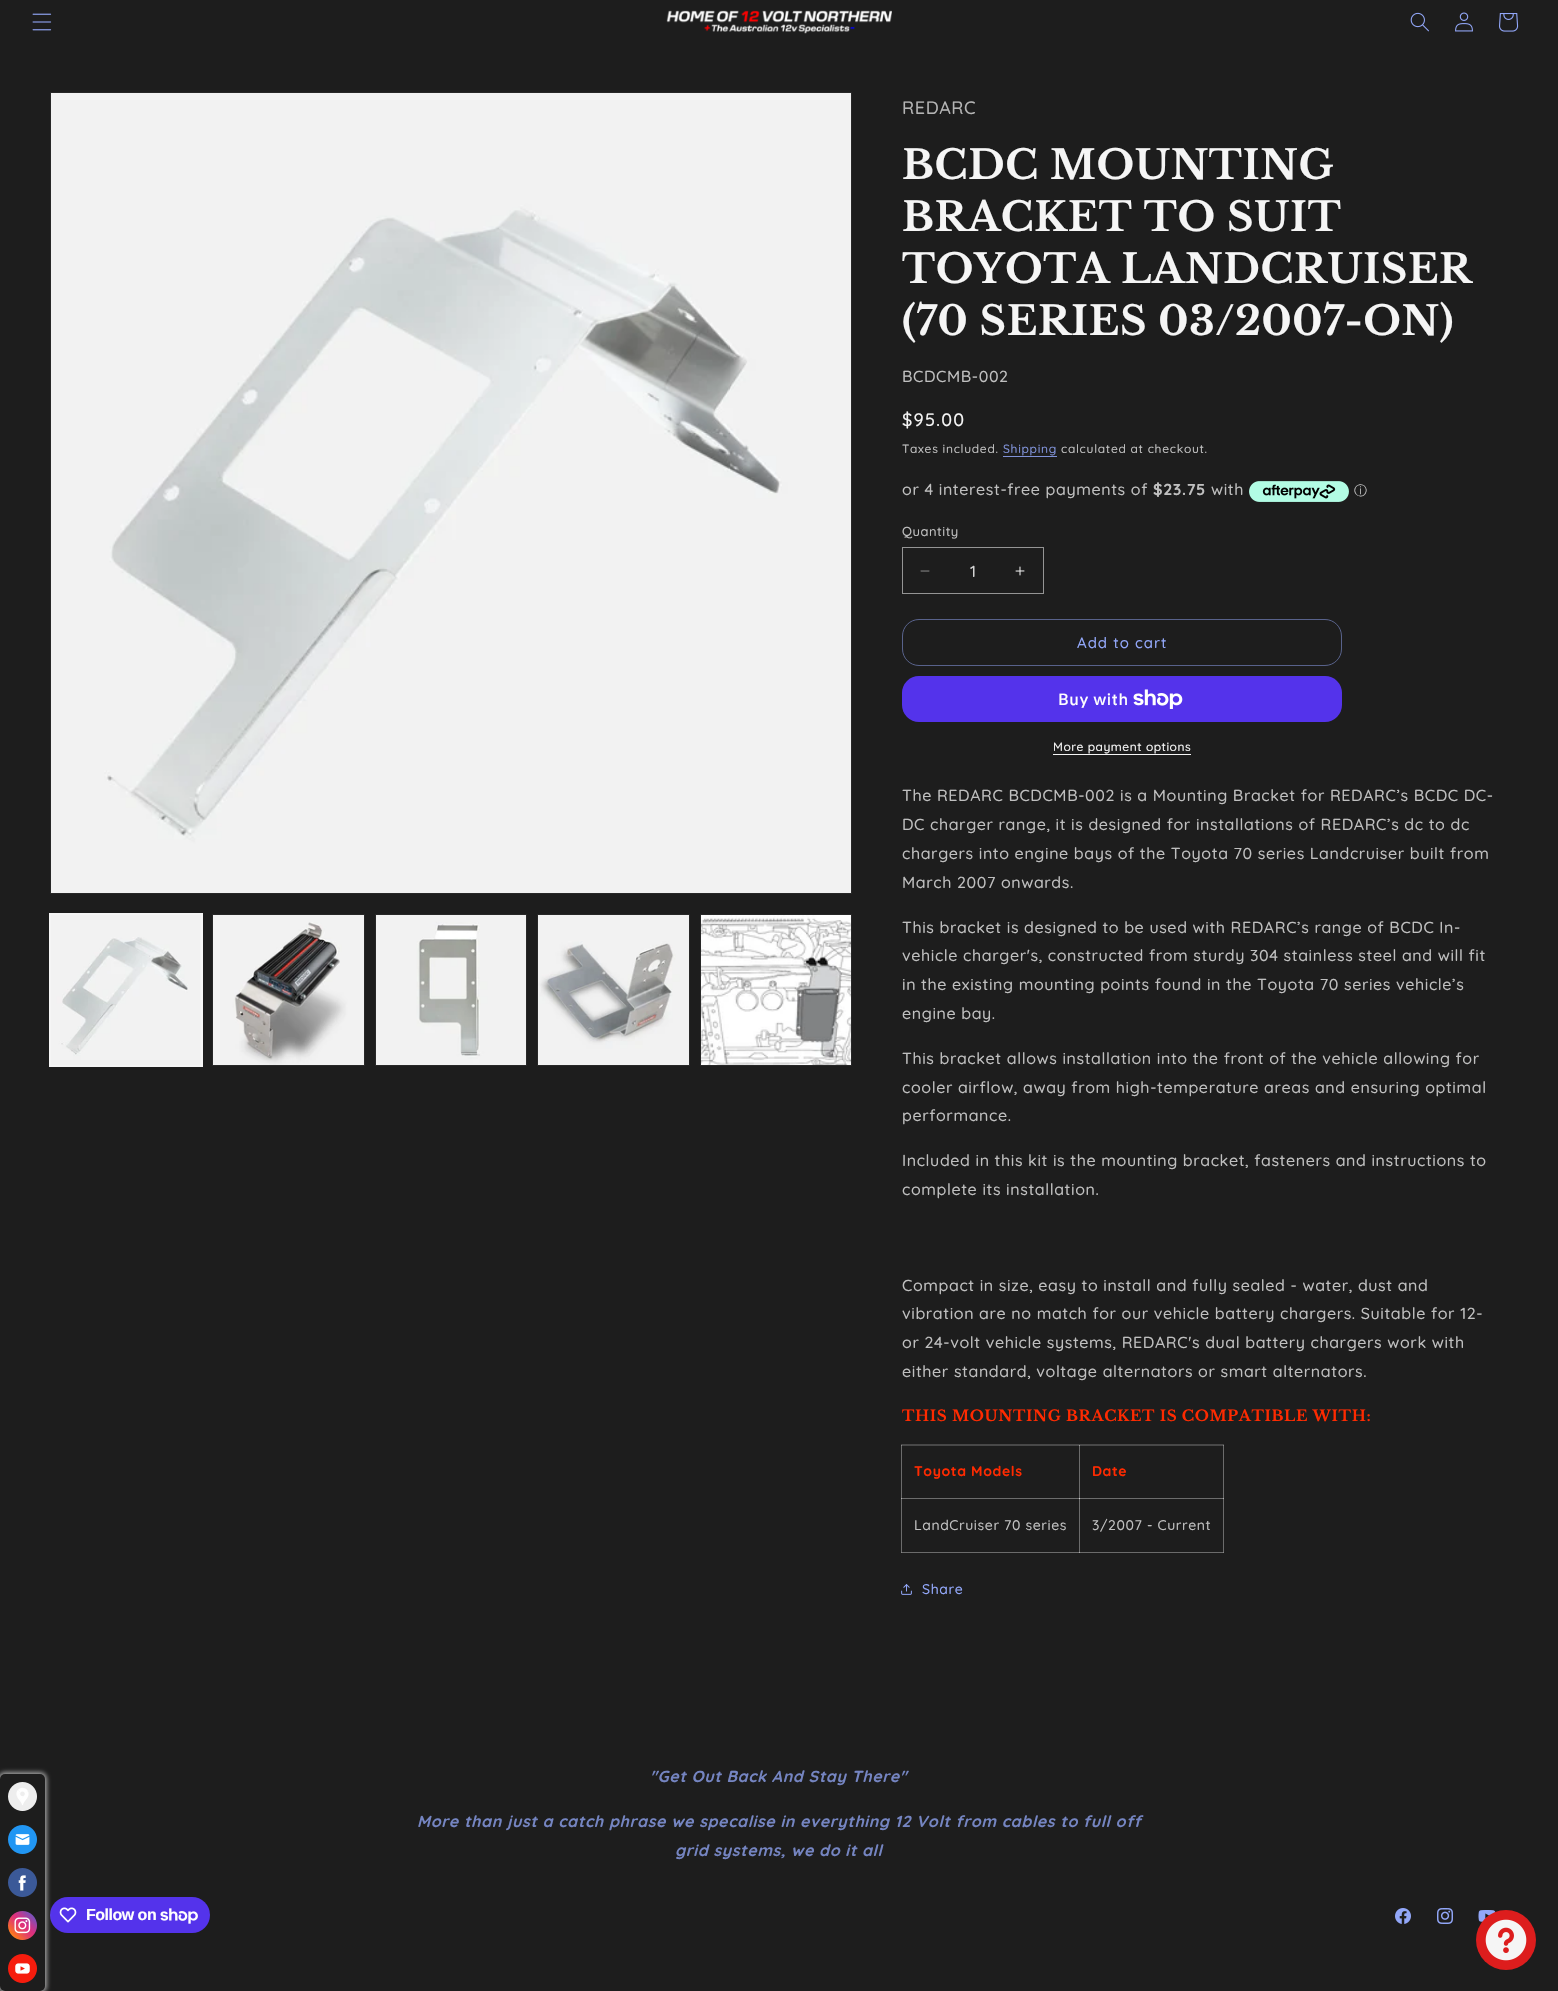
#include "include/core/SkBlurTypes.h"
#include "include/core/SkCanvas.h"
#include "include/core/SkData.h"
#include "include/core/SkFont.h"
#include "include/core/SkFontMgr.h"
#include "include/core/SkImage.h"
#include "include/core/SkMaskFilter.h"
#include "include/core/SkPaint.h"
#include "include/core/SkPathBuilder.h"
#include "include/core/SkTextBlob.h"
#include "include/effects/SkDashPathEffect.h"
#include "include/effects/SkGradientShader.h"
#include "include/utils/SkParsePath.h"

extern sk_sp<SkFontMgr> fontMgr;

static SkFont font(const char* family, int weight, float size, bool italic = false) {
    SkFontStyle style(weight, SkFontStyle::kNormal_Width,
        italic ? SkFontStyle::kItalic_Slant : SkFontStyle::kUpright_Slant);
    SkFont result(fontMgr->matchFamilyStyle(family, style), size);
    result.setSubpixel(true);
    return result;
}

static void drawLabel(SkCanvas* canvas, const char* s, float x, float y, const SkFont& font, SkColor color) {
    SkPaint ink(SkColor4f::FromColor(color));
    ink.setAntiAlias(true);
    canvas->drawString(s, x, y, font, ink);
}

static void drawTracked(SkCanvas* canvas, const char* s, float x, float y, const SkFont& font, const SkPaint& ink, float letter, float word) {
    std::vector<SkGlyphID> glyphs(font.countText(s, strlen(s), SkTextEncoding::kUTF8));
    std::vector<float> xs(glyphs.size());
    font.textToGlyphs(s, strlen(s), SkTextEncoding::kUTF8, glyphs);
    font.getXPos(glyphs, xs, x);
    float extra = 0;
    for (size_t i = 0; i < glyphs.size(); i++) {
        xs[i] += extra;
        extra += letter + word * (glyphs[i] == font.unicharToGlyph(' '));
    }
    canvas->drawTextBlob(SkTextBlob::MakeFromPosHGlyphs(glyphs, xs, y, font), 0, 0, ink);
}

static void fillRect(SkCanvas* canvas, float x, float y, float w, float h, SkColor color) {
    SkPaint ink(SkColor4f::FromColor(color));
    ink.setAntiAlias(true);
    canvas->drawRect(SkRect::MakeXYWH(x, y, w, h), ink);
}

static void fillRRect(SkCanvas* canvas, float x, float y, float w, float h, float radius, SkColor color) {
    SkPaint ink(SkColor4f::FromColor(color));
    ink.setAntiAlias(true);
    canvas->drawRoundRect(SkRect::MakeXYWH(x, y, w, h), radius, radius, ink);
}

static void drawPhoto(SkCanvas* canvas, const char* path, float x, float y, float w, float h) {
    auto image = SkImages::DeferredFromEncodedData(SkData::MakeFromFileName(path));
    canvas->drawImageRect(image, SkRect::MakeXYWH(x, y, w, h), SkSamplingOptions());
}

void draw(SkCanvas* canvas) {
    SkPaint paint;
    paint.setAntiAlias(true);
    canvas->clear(0xFF1D1D1D);
    drawPhoto(canvas, "assets/img1.png", 32, 13, 20, 18);
    drawPhoto(canvas, "assets/img2.png", 666, 10, 226, 24);
    drawPhoto(canvas, "assets/img3.png", 1410, 12, 19, 20);
    drawPhoto(canvas, "assets/img4.png", 1455, 12, 18, 20);
    drawPhoto(canvas, "assets/img5.png", 1499, 13, 20, 19);
    paint.setStroke(true);
    paint.setStrokeWidth(1);
    paint.setColor(0xFF282828);
    canvas->drawRect(SkRect::MakeXYWH(50.5f, 92.5f, 801, 801), paint);
    drawPhoto(canvas, "assets/img6.png", 51, 93, 800, 800);
    paint.setColor(0xFFF5F5F5);
    canvas->drawRect(SkRect::MakeXYWH(49.5f, 913.5f, 153, 153), paint);
    canvas->drawRect(SkRect::MakeXYWH(50.5f, 914.5f, 151, 151), paint);
    drawPhoto(canvas, "assets/img7.png", 51, 915, 150, 150);
    paint.setColor(0xFF282828);
    canvas->drawRect(SkRect::MakeXYWH(212.5f, 914.5f, 152, 151), paint);
    drawPhoto(canvas, "assets/img8.png", 213, 915, 151, 150);
    canvas->drawRect(SkRect::MakeXYWH(375.5f, 914.5f, 151, 151), paint);
    drawPhoto(canvas, "assets/img9.png", 376, 915, 150, 150);
    canvas->drawRect(SkRect::MakeXYWH(537.5f, 914.5f, 152, 151), paint);
    drawPhoto(canvas, "assets/img10.png", 538, 915, 151, 150);
    canvas->drawRect(SkRect::MakeXYWH(700.5f, 914.5f, 151, 151), paint);
    drawPhoto(canvas, "assets/img11.png", 701, 915, 150, 150);
    SkFont font1 = font("Quicksand", 500, 18);
    paint.setStroke(false);
    paint.setColor(0xFFB4B4B4);
    drawTracked(canvas, "REDARC", 902, 114, font1, paint, 0.6f, 0);
    SkFont font2 = font("Libre Baskerville", 700, 40);
    paint.setColor(0xFFF5F5F5);
    drawTracked(canvas, "BCDC MOUNTING", 902, 179, font2, paint, 0.6f, 0);
    drawTracked(canvas, "BRACKET TO SUIT", 902, 231, font2, paint, 0.6f, 0);
    drawTracked(canvas, "TOYOTA LANDCRUISER", 902, 283, font2, paint, 0.6f, 0);
    drawTracked(canvas, "(70 SERIES 03/2007-ON)", 902, 335, font2, paint, 0.6f, 0);
    SkFont font3 = font("Quicksand", 500, 16);
    paint.setColor(0xFFBFBFBF);
    drawTracked(canvas, "BCDCMB-002", 902, 382, font3, paint, 0.6f, 0);
    paint.setColor(0xFFF5F5F5);
    drawTracked(canvas, "$95.00", 902, 426, font1, paint, 1.25f, 0);
    SkFont font4 = font("Quicksand", 500, 12);
    paint.setColor(0xFFBFBFBF);
    drawTracked(canvas, "Taxes included.", 902, 453, font4, paint, 0.7f, 0);
    paint.setColor(0xFF8092D8);
    drawTracked(canvas, "Shipping", 1003, 453, font4, paint, 0.7f, 0);
    fillRect(canvas, 1003, 456, 54, 1, 0xFF8092D8);
    paint.setColor(0xFFBFBFBF);
    drawTracked(canvas, "calculated at checkout.", 1061, 453, font4, paint, 0.7f, 0);
    drawTracked(canvas, "or 4 interest-free payments of", 902, 495, font3, paint, 0.6f, 0);
    SkFont font5 = font("Quicksand", 700, 16);
    drawTracked(canvas, "$23.75", 1153, 495, font5, paint, 0.6f, 0);
    drawTracked(canvas, "with", 1211, 495, font3, paint, 0.6f, 0);
    drawPhoto(canvas, "assets/img12.png", 1249, 481, 100, 21);
    SkFont font6 = font("WenQuanYi Zen Hei", 500, 13);
    drawLabel(canvas, "ⓘ", 1354, 495, font6, 0xFFBFBFBF);
    SkFont font7 = font("Quicksand", 500, 13);
    drawTracked(canvas, "Quantity", 902, 536, font7, paint, 0.5f, 0);
    drawPhoto(canvas, "assets/img13.png", 920, 570, 10, 2);
    drawPhoto(canvas, "assets/img14.png", 1015, 566, 10, 10);
    paint.setStroke(true);
    paint.setColor(0xFF949494);
    canvas->drawRect(SkRect::MakeXYWH(902.5f, 547.5f, 141, 46), paint);
    drawLabel(canvas, "1", 970, 577, font3, 0xFFD5D5D5);
    paint.setColor(0xFF58628B);
    canvas->drawRoundRect(SkRect::MakeXYWH(902.5f, 619.5f, 439, 46), 16.5f, 16.5f, paint);
    SkFont font8 = font("Quicksand", 500, 15);
    paint.setStroke(false);
    paint.setColor(0xFF92A7F9);
    drawTracked(canvas, "Add to cart", 1077, 648, font8, paint, 1, 0);
    fillRRect(canvas, 902, 676, 440, 46, 17, 0xFF5433EB);
    SkFont font9 = font("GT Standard", 500, 16);
    paint.setColor(0xFFFFFFFF);
    drawTracked(canvas, "Buy with", 1058, 705, font9, paint, 0.6f, 0);
    drawPhoto(canvas, "assets/img15.png", 1133, 689, 50, 20);
    paint.setColor(0xFFF5F5F5);
    drawTracked(canvas, "More payment options", 1053, 751, font4, paint, 0.5f, 0);
    fillRect(canvas, 1053, 754, 138, 1, 0xFFF5F5F5);
    paint.setColor(0xFFBFBFBF);
    drawTracked(canvas, "The REDARC BCDCMB-002 is a Mounting Bracket for REDARC’s BCDC DC-", 902, 801, font3, paint, 0.6f, 0);
    drawTracked(canvas, "DC charger range, it is designed for installations of REDARC’s dc to dc", 902, 830, font3, paint, 0.6f, 0);
    drawTracked(canvas, "chargers into engine bays of the Toyota 70 series Landcruiser built from", 902, 859, font3, paint, 0.6f, 0);
    drawTracked(canvas, "March 2007 onwards.", 902, 888, font3, paint, 0.6f, 0);
    drawTracked(canvas, "This bracket is designed to be used with REDARC’s range of BCDC In-", 902, 933, font3, paint, 0.6f, 0);
    drawTracked(canvas, "vehicle charger's, constructed from sturdy 304 stainless steel and will fit", 902, 961, font3, paint, 0.6f, 0);
    drawTracked(canvas, "in the existing mounting points found in the Toyota 70 series vehicle’s", 902, 990, font3, paint, 0.6f, 0);
    drawTracked(canvas, "engine bay.", 902, 1019, font3, paint, 0.6f, 0);
    drawTracked(canvas, "This bracket allows installation into the front of the vehicle allowing for", 902, 1064, font3, paint, 0.6f, 0);
    drawTracked(canvas, "cooler airflow, away from high-temperature areas and ensuring optimal", 902, 1093, font3, paint, 0.6f, 0);
    drawTracked(canvas, "performance.", 902, 1121, font3, paint, 0.6f, 0);
    drawTracked(canvas, "Included in this kit is the mounting bracket, fasteners and instructions to", 902, 1166, font3, paint, 0.6f, 0);
    drawTracked(canvas, "complete its installation.", 902, 1195, font3, paint, 0.6f, 0);
    drawTracked(canvas, "Compact in size, easy to install and fully sealed - water, dust and", 902, 1291, font3, paint, 0.6f, 0);
    drawTracked(canvas, "vibration are no match for our vehicle battery chargers. Suitable for 12-", 902, 1319, font3, paint, 0.6f, 0);
    drawTracked(canvas, "or 24-volt vehicle systems, REDARC's dual battery chargers work with", 902, 1348, font3, paint, 0.6f, 0);
    drawTracked(canvas, "either standard, voltage alternators or smart alternators.", 902, 1377, font3, paint, 0.6f, 0);
    SkFont font10 = font("Libre Baskerville", 700, 15);
    paint.setColor(0xFFFF2A00);
    drawTracked(canvas, "THIS MOUNTING BRACKET IS COMPATIBLE WITH:", 902, 1421, font10, paint, 0.6f, 0);
    paint.setStroke(true);
    paint.setColor(0xFF484848);
    canvas->drawRect(SkRect::MakeXYWH(901.5f, 1444.5f, 322, 108), paint);
    fillRect(canvas, 1079, 1445, 145, 1, 0x33F5F5F5);
    fillRect(canvas, 1079, 1498, 145, 1, 0x33F5F5F5);
    fillRect(canvas, 1223, 1498, 1, 55, 0x33F5F5F5);
    fillRect(canvas, 1223, 1445, 1, 54, 0x33F5F5F5);
    fillRect(canvas, 1079, 1552, 145, 1, 0x33F5F5F5);
    fillRect(canvas, 1079, 1498, 1, 55, 0x33F5F5F5);
    fillRect(canvas, 901, 1498, 179, 1, 0x33F5F5F5);
    fillRect(canvas, 1079, 1498, 1, 55, 0x33F5F5F5);
    fillRect(canvas, 1079, 1498, 145, 1, 0x33F5F5F5);
    fillRect(canvas, 1079, 1445, 1, 54, 0x33F5F5F5);
    fillRect(canvas, 901, 1445, 179, 1, 0x33F5F5F5);
    fillRect(canvas, 1079, 1445, 1, 54, 0x33F5F5F5);
    fillRect(canvas, 901, 1552, 179, 1, 0x33F5F5F5);
    fillRect(canvas, 901, 1498, 1, 55, 0x33F5F5F5);
    fillRect(canvas, 901, 1498, 179, 1, 0x33F5F5F5);
    fillRect(canvas, 901, 1445, 1, 54, 0x33F5F5F5);
    SkFont font11 = font("Quicksand", 700, 14);
    paint.setStroke(false);
    paint.setColor(0xFFFF2A00);
    drawTracked(canvas, "Toyota Models", 914, 1476, font11, paint, 0.6f, 0);
    drawTracked(canvas, "Date", 1092, 1476, font11, paint, 0.6f, 0);
    SkFont font12 = font("Quicksand", 500, 14);
    paint.setColor(0xFFBFBFBF);
    drawTracked(canvas, "LandCruiser 70 series", 914, 1530, font12, paint, 0.6f, 0);
    drawTracked(canvas, "3/2007 - Current", 1092, 1530, font12, paint, 0.6f, 0);
    drawPhoto(canvas, "assets/img16.png", 901, 1584, 11, 11);
    paint.setColor(0xFF92A7F9);
    drawTracked(canvas, "Share", 922, 1594, font12, paint, 0.6f, 0);
    fillRRect(canvas, 50, 1897, 160, 36, 18, 0xFF5433EB);
    paint.setColor(0xFF9E9E9E);
    paint.setMaskFilter(SkMaskFilter::MakeBlur(kNormal_SkBlurStyle, 2));
    canvas->drawRoundRect(SkRect::MakeXYWH(-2, 1772, 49, 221), 7, 7, paint);
    paint.setMaskFilter(nullptr);
    fillRRect(canvas, 0, 1774, 45, 217, 5, 0xFF1D1D1D);
    drawPhoto(canvas, "assets/img17.png", 8, 1782, 29, 29);
    drawPhoto(canvas, "assets/img18.png", 8, 1825, 29, 29);
    drawPhoto(canvas, "assets/img19.png", 8, 1868, 29, 29);
    drawPhoto(canvas, "assets/img20.png", 8, 1911, 29, 29);
    drawPhoto(canvas, "assets/img21.png", 8, 1954, 29, 29);
    SkFont font13 = font("Quicksand", 700, 16, true);
    paint.setColor(0xFF7585C2);
    drawTracked(canvas, "\"Get Out Back And Stay There\"", 650, 1782, font13, paint, 0.6f, 0);
    drawTracked(canvas, "More than just a catch phrase we specalise in everything 12 Volt from cables to full off", 417, 1827, font13, paint, 0.6f, 0);
    drawTracked(canvas, "grid systems, we do it all", 675, 1856, font13, paint, 0.6f, 0);
    drawPhoto(canvas, "assets/img22.png", 59, 1907, 18, 16);
    SkFont font14 = font("Liberation Sans", 700, 16);
    paint.setColor(0xFFFFFFFF);
    drawTracked(canvas, "Follow on", 86, 1920, font14, paint, -0.5f, 0);
    drawPhoto(canvas, "assets/img23.png", 160, 1908, 38, 16);
    drawPhoto(canvas, "assets/img24.png", 1395, 1908, 16, 16);
    drawPhoto(canvas, "assets/img25.png", 1437, 1908, 16, 16);
    drawPhoto(canvas, "assets/img26.png", 1478, 1910, 18, 12);
    paint.setColor(0xFFDD1D1D);
    canvas->drawCircle(1506, 1940, 30, paint);
    drawPhoto(canvas, "assets/img27.png", 1485, 1919, 42, 42);
}
